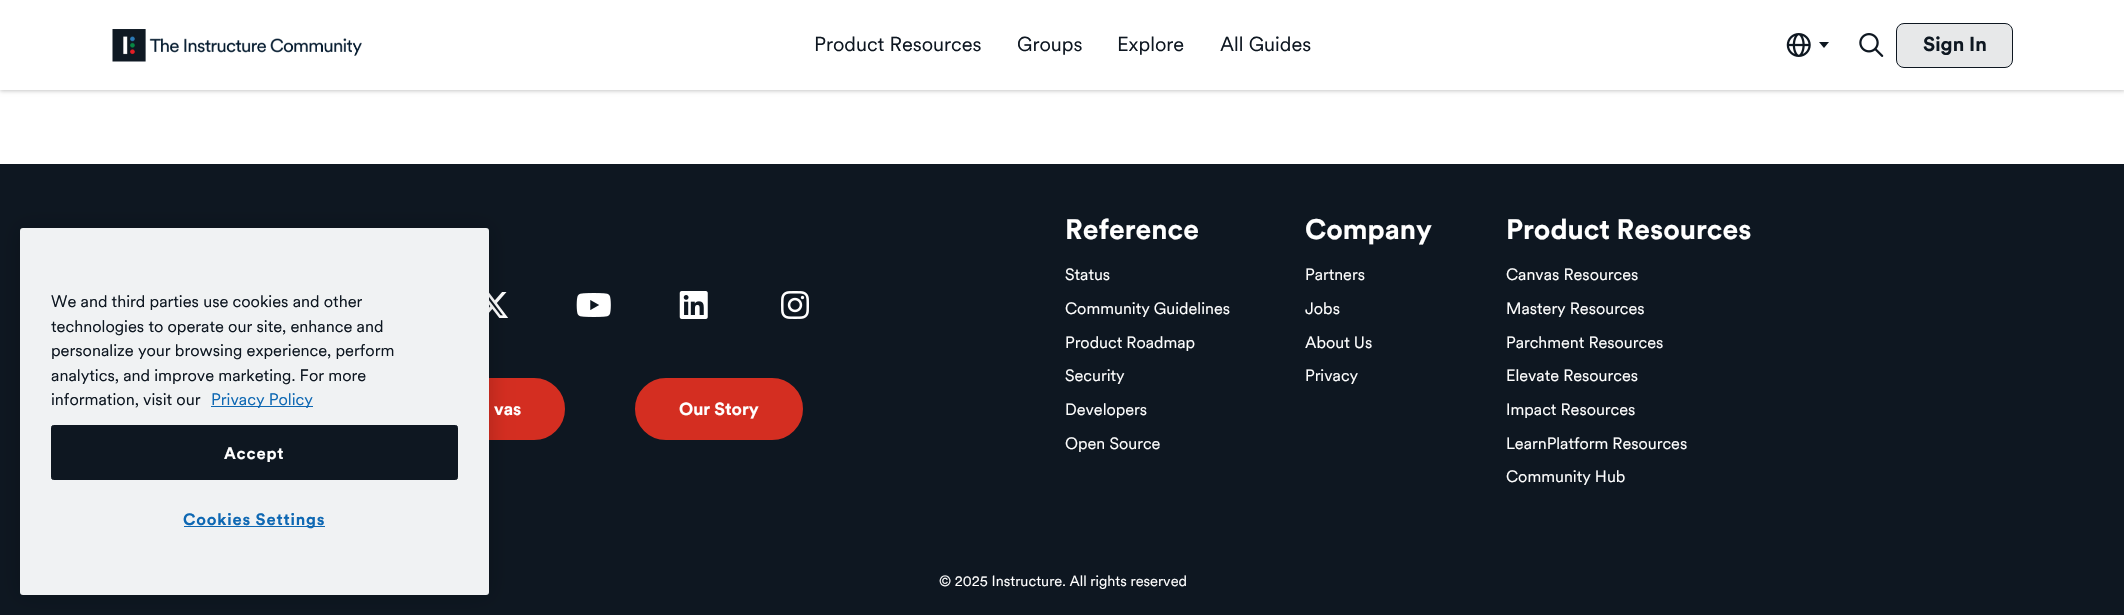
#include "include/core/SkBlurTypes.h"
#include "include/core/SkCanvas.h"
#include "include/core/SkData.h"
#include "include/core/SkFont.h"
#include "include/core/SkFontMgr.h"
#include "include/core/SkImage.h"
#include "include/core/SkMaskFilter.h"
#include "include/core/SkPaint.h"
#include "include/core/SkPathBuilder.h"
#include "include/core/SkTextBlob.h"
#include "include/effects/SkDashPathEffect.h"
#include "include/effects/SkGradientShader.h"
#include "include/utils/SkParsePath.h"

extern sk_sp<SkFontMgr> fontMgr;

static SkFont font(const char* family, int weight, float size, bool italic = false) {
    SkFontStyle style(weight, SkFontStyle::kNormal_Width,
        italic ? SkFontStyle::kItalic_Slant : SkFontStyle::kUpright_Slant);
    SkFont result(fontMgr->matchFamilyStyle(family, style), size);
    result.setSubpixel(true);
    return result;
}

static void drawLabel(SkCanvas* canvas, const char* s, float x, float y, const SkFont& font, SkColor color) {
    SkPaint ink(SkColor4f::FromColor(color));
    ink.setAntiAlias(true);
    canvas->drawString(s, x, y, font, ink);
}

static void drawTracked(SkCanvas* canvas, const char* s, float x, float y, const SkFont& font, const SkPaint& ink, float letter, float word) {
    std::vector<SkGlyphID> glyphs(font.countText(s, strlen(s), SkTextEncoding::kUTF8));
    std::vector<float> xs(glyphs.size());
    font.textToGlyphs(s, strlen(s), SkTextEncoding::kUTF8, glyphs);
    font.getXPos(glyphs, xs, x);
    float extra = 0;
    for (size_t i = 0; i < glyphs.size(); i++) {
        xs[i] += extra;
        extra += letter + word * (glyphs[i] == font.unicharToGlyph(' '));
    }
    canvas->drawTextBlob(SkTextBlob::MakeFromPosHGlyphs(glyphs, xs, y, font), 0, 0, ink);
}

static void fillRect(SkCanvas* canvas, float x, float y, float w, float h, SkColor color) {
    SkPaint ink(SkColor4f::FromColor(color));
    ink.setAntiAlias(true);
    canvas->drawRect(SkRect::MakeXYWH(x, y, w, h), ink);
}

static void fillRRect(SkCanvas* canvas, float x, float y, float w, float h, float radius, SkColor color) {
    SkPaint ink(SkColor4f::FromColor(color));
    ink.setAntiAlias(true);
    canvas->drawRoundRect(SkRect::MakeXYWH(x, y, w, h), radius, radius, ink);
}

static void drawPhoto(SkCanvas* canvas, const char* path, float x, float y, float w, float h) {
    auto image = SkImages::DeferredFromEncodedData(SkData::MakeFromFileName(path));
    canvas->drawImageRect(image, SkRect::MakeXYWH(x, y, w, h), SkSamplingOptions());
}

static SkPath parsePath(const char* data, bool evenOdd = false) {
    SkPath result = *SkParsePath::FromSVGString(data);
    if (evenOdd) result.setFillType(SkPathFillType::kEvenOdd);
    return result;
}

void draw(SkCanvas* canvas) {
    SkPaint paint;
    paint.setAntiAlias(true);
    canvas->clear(0xFFFFFFFF);
    fillRect(canvas, 0, 164, 2124, 451, 0xFF0E1721);
    drawPhoto(canvas, "assets/img4.png", 489, 292, 20, 26);
    paint.setColor(0xFFD42E21);
    canvas->drawRoundRect(SkRect::MakeXYWH(389, 381, 173, 56), 28, 28, paint);
    paint.setStroke(true);
    paint.setStrokeWidth(6);
    canvas->drawRoundRect(SkRect::MakeXYWH(389, 381, 173, 56), 28, 28, paint);
    paint.setStroke(false);
    paint.setColor(0x33000000);
    paint.setMaskFilter(SkMaskFilter::MakeBlur(kNormal_SkBlurStyle, 11));
    canvas->drawRoundRect(SkRect::MakeXYWH(20, 228, 469, 367), 3, 3, paint);
    paint.setMaskFilter(nullptr);
    fillRRect(canvas, 20, 228, 469, 367, 3, 0xFFF0F2F3);
    SkFont font1 = font("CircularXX", 400, 16.4f);
    drawLabel(canvas, "We and third parties use cookies and other", 51, 307, font1, 0xFF0E1721);
    drawLabel(canvas, "technologies to operate our site, enhance and", 51, 332, font1, 0xFF0E1721);
    drawLabel(canvas, "personalize your browsing experience, perform", 51, 356, font1, 0xFF0E1721);
    drawLabel(canvas, "analytics, and improve marketing. For more", 51, 381, font1, 0xFF0E1721);
    drawLabel(canvas, "information, visit our", 51, 405, font1, 0xFF0E1721);
    fillRect(canvas, 211, 406, 102, 1, 0xFF0E68B3);
    drawLabel(canvas, "Privacy Policy", 211, 405, font1, 0xFF0E68B3);
    paint.setColor(0xFF0E1721);
    canvas->drawRoundRect(SkRect::MakeXYWH(51.5f, 425.5f, 406, 54), 2, 2, paint);
    paint.setStroke(true);
    paint.setStrokeWidth(1);
    canvas->drawRoundRect(SkRect::MakeXYWH(51.5f, 425.5f, 406, 54), 2, 2, paint);
    SkFont font2 = font("CircularXX", 700, 16.4f);
    paint.setStroke(false);
    paint.setColor(0xFFFFFFFF);
    drawTracked(canvas, "Accept", 224, 459, font2, paint, 0.8f, 0);
    fillRect(canvas, 184, 526, 141, 1, 0xFF0E68B3);
    paint.setColor(0xFF0E68B3);
    drawTracked(canvas, "Cookies Settings", 183, 525, font2, paint, 0.8f, 0);
    paint.setColor(0x38000000);
    paint.setMaskFilter(SkMaskFilter::MakeBlur(kNormal_SkBlurStyle, 2));
    canvas->drawRect(SkRect::MakeXYWH(0, 1, 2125, 90), paint);
    paint.setMaskFilter(nullptr);
    fillRect(canvas, 0, 0, 2124, 90, 0xFFFFFFFF);
    drawPhoto(canvas, "assets/img1.png", 112, 29, 250, 33);
    SkFont font3 = font("CircularXX", 400, 20);
    drawLabel(canvas, "Product Resources", 814, 51, font3, 0xFF0E1721);
    drawLabel(canvas, "Groups", 1017, 51, font3, 0xFF0E1721);
    drawLabel(canvas, "Explore", 1117, 51, font3, 0xFF0E1721);
    drawLabel(canvas, "All Guides", 1220, 51, font3, 0xFF0E1721);
    drawPhoto(canvas, "assets/img2.png", 1786, 33, 25, 24);
    paint.setColor(0xFF0E1721);
    canvas->drawPath(parsePath("M1819 42H1829L1824 48Z"), paint);
    drawPhoto(canvas, "assets/img3.png", 1859, 33, 25, 24);
    paint.setColor(0xFFE7E8E9);
    canvas->drawRoundRect(SkRect::MakeXYWH(1896.5f, 23.5f, 116, 44), 7.5f, 7.5f, paint);
    paint.setStroke(true);
    paint.setColor(0xFF0E1721);
    canvas->drawRoundRect(SkRect::MakeXYWH(1896.5f, 23.5f, 116, 44), 7.5f, 7.5f, paint);
    SkFont font4 = font("CircularXX", 700, 20);
    drawLabel(canvas, "Sign In", 1923, 51, font4, 0xFF0E1721);
    drawPhoto(canvas, "assets/img5.png", 576, 293, 35, 24);
    drawPhoto(canvas, "assets/img6.png", 679, 291, 29, 28);
    drawPhoto(canvas, "assets/img7.png", 781, 291, 28, 28);
    SkFont font5 = font("CircularXX", 700, 17.5f);
    drawLabel(canvas, "vas", 494, 415, font5, 0xFFFFFFFF);
    paint.setStroke(false);
    paint.setColor(0xFFD42E21);
    canvas->drawRoundRect(SkRect::MakeXYWH(638, 381, 162, 56), 28, 28, paint);
    paint.setStroke(true);
    paint.setStrokeWidth(6);
    canvas->drawRoundRect(SkRect::MakeXYWH(638, 381, 162, 56), 28, 28, paint);
    drawLabel(canvas, "Our Story", 679, 415, font5, 0xFFFFFFFF);
    SkFont font6 = font("CircularXX", 700, 28);
    drawLabel(canvas, "Reference", 1065, 239, font6, 0xFFFFFFFF);
    SkFont font7 = font("CircularXX", 400, 16.25f);
    drawLabel(canvas, "Status", 1065, 280, font7, 0xFFFFFFFF);
    drawLabel(canvas, "Community Guidelines", 1065, 314, font7, 0xFFFFFFFF);
    drawLabel(canvas, "Product Roadmap", 1065, 348, font7, 0xFFFFFFFF);
    drawLabel(canvas, "Security", 1065, 381, font7, 0xFFFFFFFF);
    drawLabel(canvas, "Developers", 1065, 415, font7, 0xFFFFFFFF);
    drawLabel(canvas, "Open Source", 1065, 449, font7, 0xFFFFFFFF);
    drawLabel(canvas, "Company", 1305, 239, font6, 0xFFFFFFFF);
    drawLabel(canvas, "Partners", 1305, 280, font7, 0xFFFFFFFF);
    drawLabel(canvas, "Jobs", 1305, 314, font7, 0xFFFFFFFF);
    drawLabel(canvas, "About Us", 1305, 348, font7, 0xFFFFFFFF);
    drawLabel(canvas, "Privacy", 1305, 381, font7, 0xFFFFFFFF);
    drawLabel(canvas, "Product Resources", 1506, 239, font6, 0xFFFFFFFF);
    drawLabel(canvas, "Canvas Resources", 1506, 280, font7, 0xFFFFFFFF);
    drawLabel(canvas, "Mastery Resources", 1506, 314, font7, 0xFFFFFFFF);
    drawLabel(canvas, "Parchment Resources", 1506, 348, font7, 0xFFFFFFFF);
    drawLabel(canvas, "Elevate Resources", 1506, 381, font7, 0xFFFFFFFF);
    drawLabel(canvas, "Impact Resources", 1506, 415, font7, 0xFFFFFFFF);
    drawLabel(canvas, "LearnPlatform Resources", 1506, 449, font7, 0xFFFFFFFF);
    drawLabel(canvas, "Community Hub", 1506, 482, font7, 0xFFFFFFFF);
    SkFont font8 = font("CircularXX", 400, 14.6f);
    drawLabel(canvas, "© 2025 Instructure. All rights reserved", 939, 586, font8, 0xFFFFFFFF);
}
